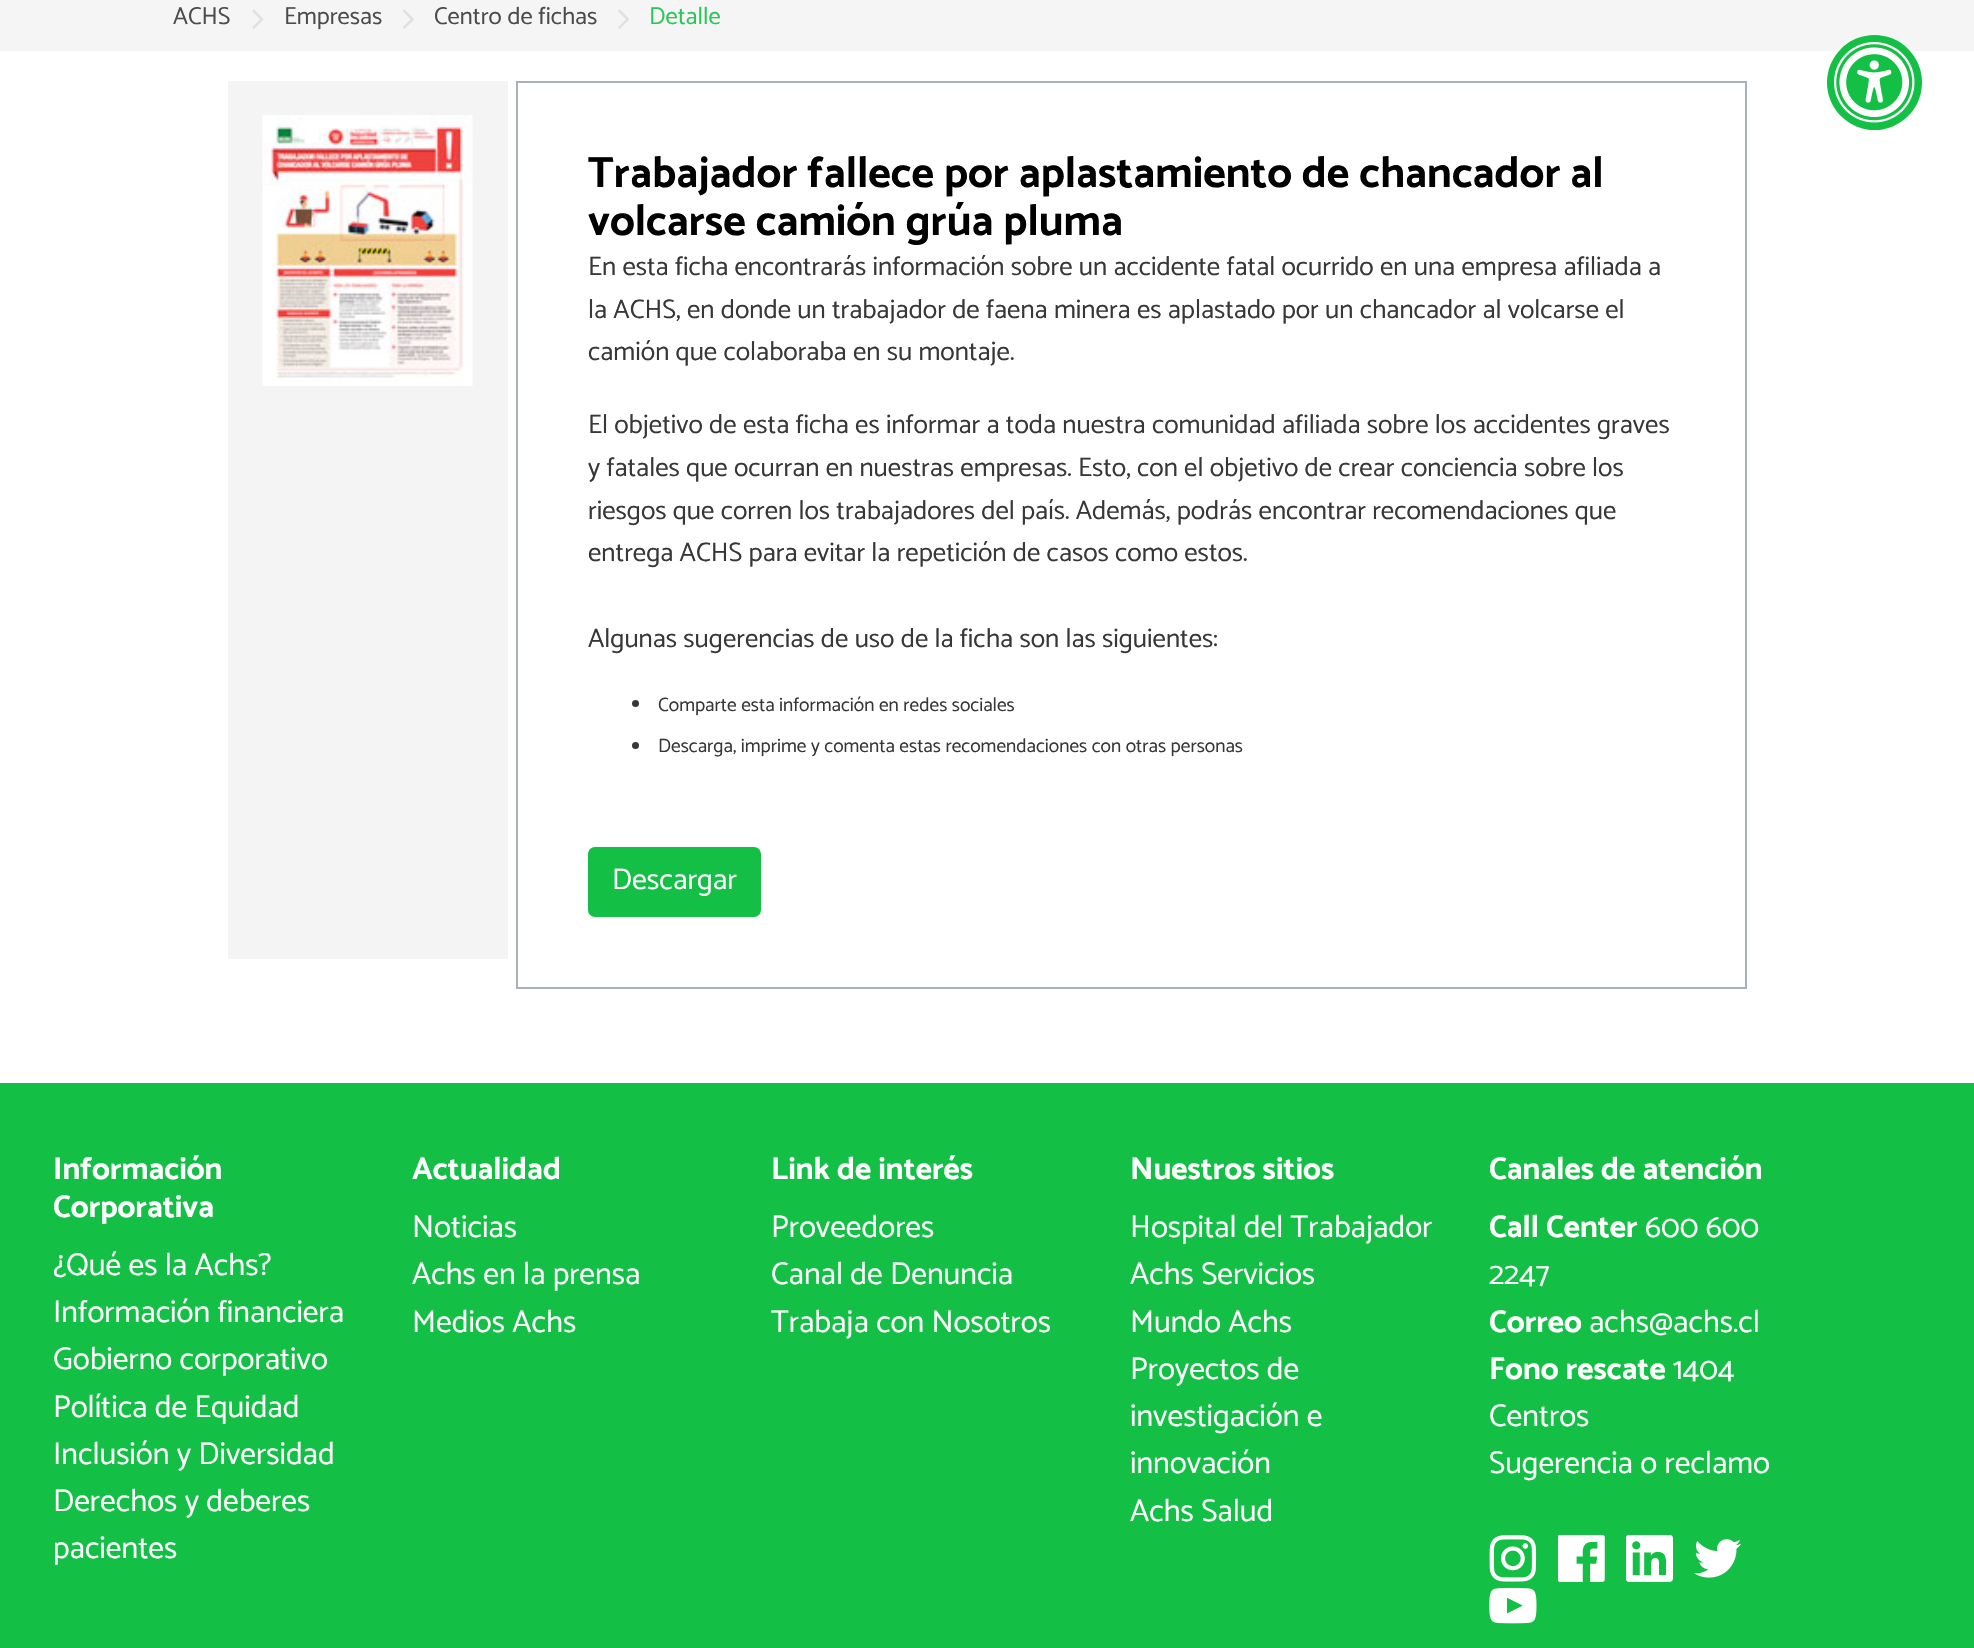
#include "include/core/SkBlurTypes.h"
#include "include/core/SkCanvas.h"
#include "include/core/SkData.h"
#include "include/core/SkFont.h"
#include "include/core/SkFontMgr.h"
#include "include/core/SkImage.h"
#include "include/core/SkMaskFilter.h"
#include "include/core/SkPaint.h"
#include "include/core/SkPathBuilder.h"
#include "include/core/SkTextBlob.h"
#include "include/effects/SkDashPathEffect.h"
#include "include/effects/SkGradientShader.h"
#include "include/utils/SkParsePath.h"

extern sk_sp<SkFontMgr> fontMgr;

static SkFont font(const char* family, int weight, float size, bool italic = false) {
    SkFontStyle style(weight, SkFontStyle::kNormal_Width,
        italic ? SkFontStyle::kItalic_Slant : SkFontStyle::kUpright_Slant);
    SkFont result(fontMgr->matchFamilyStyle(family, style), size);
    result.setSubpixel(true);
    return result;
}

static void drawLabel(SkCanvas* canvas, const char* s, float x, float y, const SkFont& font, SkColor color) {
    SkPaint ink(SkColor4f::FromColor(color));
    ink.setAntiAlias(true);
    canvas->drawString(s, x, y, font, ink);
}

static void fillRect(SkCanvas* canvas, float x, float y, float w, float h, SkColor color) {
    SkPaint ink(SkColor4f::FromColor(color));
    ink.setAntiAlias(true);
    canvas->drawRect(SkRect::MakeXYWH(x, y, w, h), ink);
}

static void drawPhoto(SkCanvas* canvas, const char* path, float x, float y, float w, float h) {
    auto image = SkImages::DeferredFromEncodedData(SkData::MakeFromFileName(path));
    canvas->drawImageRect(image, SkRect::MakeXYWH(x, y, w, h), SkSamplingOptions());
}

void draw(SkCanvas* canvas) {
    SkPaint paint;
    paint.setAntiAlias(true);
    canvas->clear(0xFFFFFFFF);
    fillRect(canvas, 0, 0, 1974, 51, 0xFFF5F5F5);
    SkFont font1 = font("Catamaran", 400, 24.5f);
    drawLabel(canvas, "ACHS", 173, 24, font1, 0xFF4B4B4B);
    drawPhoto(canvas, "assets/img1.png", 252, 9, 12, 20);
    drawLabel(canvas, "Empresas", 284, 24, font1, 0xFF4B4B4B);
    drawPhoto(canvas, "assets/img2.png", 403, 9, 11, 20);
    drawLabel(canvas, "Centro de fichas", 434, 24, font1, 0xFF4B4B4B);
    drawPhoto(canvas, "assets/img3.png", 618, 9, 11, 20);
    drawLabel(canvas, "Detalle", 649, 24, font1, 0xFF2BC658);
    paint.setColor(0xFF13C045);
    canvas->drawCircle(1874.5f, 82.5f, 47.5f, paint);
    drawPhoto(canvas, "assets/img4.png", 1834, 42, 81, 81);
    fillRect(canvas, 228, 81, 280, 878, 0xFFF4F4F4);
    drawPhoto(canvas, "assets/img5.png", 262, 115, 211, 271);
    paint.setStroke(true);
    paint.setStrokeWidth(2);
    paint.setColor(0xFFAAB0B7);
    canvas->drawRect(SkRect::MakeXYWH(517, 82, 1229, 906), paint);
    SkFont font2 = font("Catamaran", 700, 43.75f);
    drawLabel(canvas, "Trabajador fallece por aplastamiento de chancador al", 588, 187, font2, 0xFF000000);
    drawLabel(canvas, "volcarse camión grúa pluma", 588, 235, font2, 0xFF000000);
    SkFont font3 = font("Catamaran", 400, 26.8f);
    drawLabel(canvas, "En esta ficha encontrarás información sobre un accidente fatal ocurrido en una empresa afiliada a", 588, 275, font3, 0xFF373737);
    drawLabel(canvas, "la ACHS, en donde un trabajador de faena minera es aplastado por un chancador al volcarse el", 588, 318, font3, 0xFF373737);
    drawLabel(canvas, "camión que colaboraba en su montaje.", 588, 360, font3, 0xFF373737);
    drawLabel(canvas, "El objetivo de esta ficha es informar a toda nuestra comunidad afiliada sobre los accidentes graves", 588, 433, font3, 0xFF373737);
    drawLabel(canvas, "y fatales que ocurran en nuestras empresas. Esto, con el objetivo de crear conciencia sobre los", 588, 476, font3, 0xFF373737);
    drawLabel(canvas, "riesgos que corren los trabajadores del país. Además, podrás encontrar recomendaciones que", 588, 519, font3, 0xFF373737);
    drawLabel(canvas, "entrega ACHS para evitar la repetición de casos como estos.", 588, 561, font3, 0xFF373737);
    drawLabel(canvas, "Algunas sugerencias de uso de la ficha son las siguientes:", 588, 647, font3, 0xFF373737);
    paint.setStroke(false);
    paint.setColor(0xFF373737);
    canvas->drawCircle(635.5f, 703.5f, 3.5f, paint);
    SkFont font4 = font("Catamaran", 400, 19.35f);
    drawLabel(canvas, "Comparte esta información en redes sociales", 658, 711, font4, 0xFF373737);
    canvas->drawCircle(635.5f, 745.5f, 3.5f, paint);
    drawLabel(canvas, "Descarga, imprime y comenta estas recomendaciones con otras personas", 658, 752, font4, 0xFF373737);
    paint.setColor(0xFF13C045);
    canvas->drawRoundRect(SkRect::MakeXYWH(589, 848, 171, 68), 6, 6, paint);
    paint.setStroke(true);
    canvas->drawRoundRect(SkRect::MakeXYWH(589, 848, 171, 68), 6, 6, paint);
    SkFont font5 = font("Catamaran", 400, 29.75f);
    drawLabel(canvas, "Descargar", 612, 889, font5, 0xFFFFFFFF);
    fillRect(canvas, 0, 1083, 1974, 565, 0xFF13C045);
    SkFont font6 = font("Catamaran", 700, 31.5f);
    drawLabel(canvas, "Información", 53, 1179, font6, 0xFFFFFFFF);
    drawLabel(canvas, "Corporativa", 53, 1217, font6, 0xFFFFFFFF);
    SkFont font7 = font("Catamaran", 400, 31.5f);
    drawLabel(canvas, "¿Qué es la Achs?", 53, 1275, font7, 0xFFFFFFFF);
    drawLabel(canvas, "Información financiera", 53, 1322, font7, 0xFFFFFFFF);
    drawLabel(canvas, "Gobierno corporativo", 53, 1369, font7, 0xFFFFFFFF);
    drawLabel(canvas, "Política de Equidad", 53, 1417, font7, 0xFFFFFFFF);
    drawLabel(canvas, "Inclusión y Diversidad", 53, 1464, font7, 0xFFFFFFFF);
    drawLabel(canvas, "Derechos y deberes", 53, 1511, font7, 0xFFFFFFFF);
    drawLabel(canvas, "pacientes", 53, 1558, font7, 0xFFFFFFFF);
    drawLabel(canvas, "Actualidad", 412, 1179, font6, 0xFFFFFFFF);
    drawLabel(canvas, "Noticias", 412, 1237, font7, 0xFFFFFFFF);
    drawLabel(canvas, "Achs en la prensa", 412, 1284, font7, 0xFFFFFFFF);
    drawLabel(canvas, "Medios Achs", 412, 1332, font7, 0xFFFFFFFF);
    drawLabel(canvas, "Link de interés", 771, 1179, font6, 0xFFFFFFFF);
    drawLabel(canvas, "Proveedores", 771, 1237, font7, 0xFFFFFFFF);
    drawLabel(canvas, "Canal de Denuncia", 771, 1284, font7, 0xFFFFFFFF);
    drawLabel(canvas, "Trabaja con Nosotros", 771, 1332, font7, 0xFFFFFFFF);
    drawLabel(canvas, "Nuestros sitios", 1130, 1179, font6, 0xFFFFFFFF);
    drawLabel(canvas, "Hospital del Trabajador", 1130, 1237, font7, 0xFFFFFFFF);
    drawLabel(canvas, "Achs Servicios", 1130, 1284, font7, 0xFFFFFFFF);
    drawLabel(canvas, "Mundo Achs", 1130, 1332, font7, 0xFFFFFFFF);
    drawLabel(canvas, "Proyectos de", 1130, 1379, font7, 0xFFFFFFFF);
    drawLabel(canvas, "investigación e", 1130, 1426, font7, 0xFFFFFFFF);
    drawLabel(canvas, "innovación", 1130, 1473, font7, 0xFFFFFFFF);
    drawLabel(canvas, "Achs Salud", 1130, 1521, font7, 0xFFFFFFFF);
    drawLabel(canvas, "Canales de atención", 1489, 1179, font6, 0xFFFFFFFF);
    drawLabel(canvas, "Call Center", 1489, 1237, font6, 0xFFFFFFFF);
    drawLabel(canvas, "600 600", 1645, 1237, font7, 0xFFFFFFFF);
    drawLabel(canvas, "2247", 1489, 1284, font7, 0xFFFFFFFF);
    drawLabel(canvas, "Correo", 1489, 1332, font6, 0xFFFFFFFF);
    drawLabel(canvas, "achs@achs.cl", 1589, 1332, font7, 0xFFFFFFFF);
    drawLabel(canvas, "Fono rescate", 1489, 1379, font6, 0xFFFFFFFF);
    drawLabel(canvas, "1404", 1673, 1379, font7, 0xFFFFFFFF);
    drawLabel(canvas, "Centros", 1489, 1426, font7, 0xFFFFFFFF);
    drawLabel(canvas, "Sugerencia o reclamo", 1489, 1473, font7, 0xFFFFFFFF);
    drawPhoto(canvas, "assets/img6.png", 1489, 1535, 48, 47);
    drawPhoto(canvas, "assets/img7.png", 1558, 1535, 47, 47);
    drawPhoto(canvas, "assets/img8.png", 1626, 1535, 47, 47);
    drawPhoto(canvas, "assets/img9.png", 1694, 1539, 47, 39);
    drawPhoto(canvas, "assets/img10.png", 1489, 1587, 48, 37);
}
